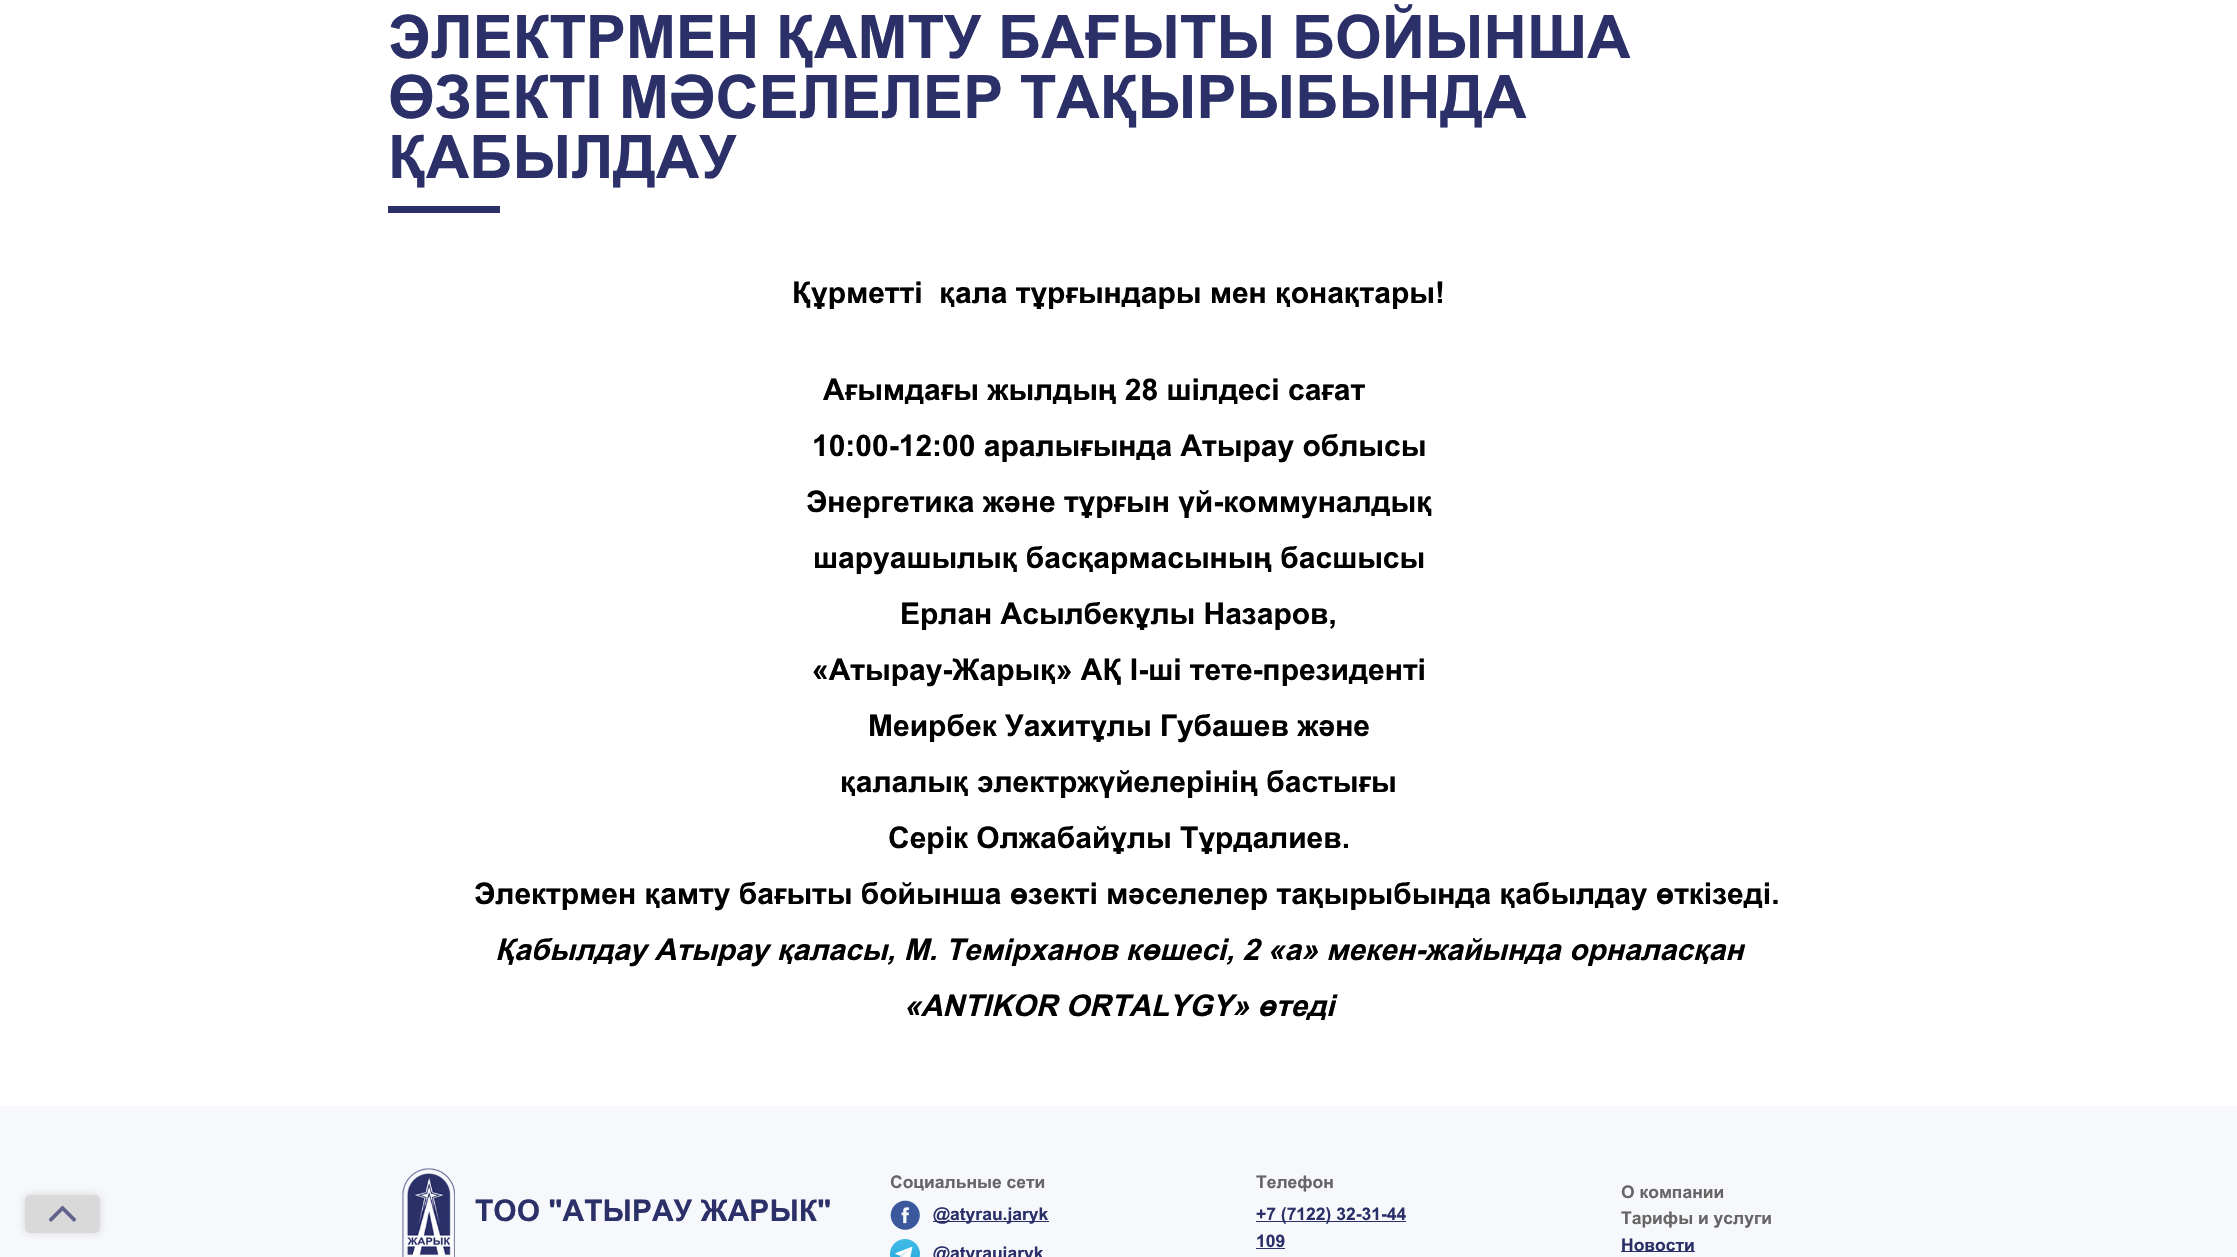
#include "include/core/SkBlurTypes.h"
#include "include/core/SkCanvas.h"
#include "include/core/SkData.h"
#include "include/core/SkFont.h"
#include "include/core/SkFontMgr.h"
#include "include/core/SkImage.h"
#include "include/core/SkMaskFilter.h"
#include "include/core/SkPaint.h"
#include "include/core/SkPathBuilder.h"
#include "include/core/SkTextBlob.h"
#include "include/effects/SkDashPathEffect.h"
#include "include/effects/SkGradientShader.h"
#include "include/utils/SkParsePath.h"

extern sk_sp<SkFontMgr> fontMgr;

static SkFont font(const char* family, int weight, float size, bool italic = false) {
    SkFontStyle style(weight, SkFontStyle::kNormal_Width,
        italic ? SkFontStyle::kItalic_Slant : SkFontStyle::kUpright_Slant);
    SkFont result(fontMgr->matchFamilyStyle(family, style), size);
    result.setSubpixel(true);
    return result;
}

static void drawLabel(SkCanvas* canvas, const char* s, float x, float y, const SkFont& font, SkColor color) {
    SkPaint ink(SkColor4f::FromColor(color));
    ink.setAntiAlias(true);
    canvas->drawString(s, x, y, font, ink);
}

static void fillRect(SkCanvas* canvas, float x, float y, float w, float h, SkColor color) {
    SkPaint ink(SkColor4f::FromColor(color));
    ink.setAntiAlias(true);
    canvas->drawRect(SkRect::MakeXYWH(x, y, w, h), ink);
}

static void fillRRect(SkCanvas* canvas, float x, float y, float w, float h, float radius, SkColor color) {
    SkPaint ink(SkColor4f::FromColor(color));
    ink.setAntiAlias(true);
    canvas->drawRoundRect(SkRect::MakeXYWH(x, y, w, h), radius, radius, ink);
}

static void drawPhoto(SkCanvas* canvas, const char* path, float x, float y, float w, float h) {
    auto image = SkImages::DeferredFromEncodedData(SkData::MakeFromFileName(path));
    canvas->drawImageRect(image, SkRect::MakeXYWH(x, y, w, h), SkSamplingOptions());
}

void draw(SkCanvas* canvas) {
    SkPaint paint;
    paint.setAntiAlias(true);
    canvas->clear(0xFFFFFFFF);
    SkFont font1 = font("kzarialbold", 700, 60);
    drawLabel(canvas, "ЭЛЕКТРМЕН ҚАМТУ БАҒЫТЫ БОЙЫНША", 388, 58, font1, 0xFF2B3069);
    drawLabel(canvas, "ӨЗЕКТІ МӘСЕЛЕЛЕР ТАҚЫРЫБЫНДА", 388, 118, font1, 0xFF2B3069);
    drawLabel(canvas, "ҚАБЫЛДАУ", 388, 178, font1, 0xFF2B3069);
    fillRect(canvas, 388, 206, 112, 7, 0xFF2B3069);
    SkFont font2 = font("kzarialbold", 700, 30);
    drawLabel(canvas, "Құрметті  қала тұрғындары мен қонақтары!", 792, 303, font2, 0xFF000000);
    drawLabel(canvas, "Ағымдағы жылдың 28 шілдесі сағат", 823, 400, font2, 0xFF000000);
    drawLabel(canvas, "10:00-12:00 аралығында Атырау облысы", 812, 456, font2, 0xFF000000);
    drawLabel(canvas, "Энергетика және тұрғын үй-коммуналдық", 806, 512, font2, 0xFF000000);
    drawLabel(canvas, "шаруашылық басқармасының басшысы", 813, 568, font2, 0xFF000000);
    drawLabel(canvas, "Ерлан Асылбекұлы Назаров,", 900, 624, font2, 0xFF000000);
    drawLabel(canvas, "«Атырау-Жарық» АҚ I-ші тете-президенті", 812, 680, font2, 0xFF000000);
    drawLabel(canvas, "Меирбек Уахитұлы Губашев және", 868, 736, font2, 0xFF000000);
    drawLabel(canvas, "қалалық электржүйелерінің бастығы", 840, 792, font2, 0xFF000000);
    drawLabel(canvas, "Серік Олжабайұлы Тұрдалиев.", 888, 848, font2, 0xFF000000);
    drawLabel(canvas, "Электрмен қамту бағыты бойынша өзекті мәселелер тақырыбында қабылдау өткізеді.", 474, 904, font2, 0xFF000000);
    SkFont font3 = font("kzarialbold", 700, 30, true);
    drawLabel(canvas, "Қабылдау Атырау қаласы, М. Темірханов көшесі, 2 «а» мекен-жайында орналасқан", 495, 960, font3, 0xFF000000);
    drawLabel(canvas, "«ANTIKOR ORTALYGY» өтеді", 904, 1016, font3, 0xFF000000);
    fillRect(canvas, 0, 1106, 2237, 151, 0xFFF7F8FC);
    paint.setColor(0x334A4A4C);
    paint.setMaskFilter(SkMaskFilter::MakeBlur(kNormal_SkBlurStyle, 4.5f));
    canvas->drawRoundRect(SkRect::MakeXYWH(25, 1195, 75, 38), 5, 5, paint);
    paint.setMaskFilter(nullptr);
    fillRRect(canvas, 25, 1195, 75, 38, 5, 0xFFD9D9DA);
    drawPhoto(canvas, "assets/img1.png", 49, 1205, 27, 17);
    drawPhoto(canvas, "assets/img2.png", 402, 1168, 53, 89);
    drawLabel(canvas, "ТОО \"АТЫРАУ ЖАРЫК\"", 475, 1221, font2, 0xFF2B3069);
    SkFont font4 = font("kzarialbold", 700, 17.5f);
    drawLabel(canvas, "Социальные сети", 890, 1188, font4, 0xFF666666);
    drawPhoto(canvas, "assets/img3.png", 890, 1200, 30, 30);
    fillRect(canvas, 933, 1221, 116, 1, 0xFF2B3069);
    drawLabel(canvas, "@atyrau.jaryk", 933, 1220, font4, 0xFF2B3069);
    drawPhoto(canvas, "assets/img4.png", 890, 1239, 30, 18);
    drawLabel(canvas, "@atyraujaryk", 933, 1259, font4, 0xFF2B3069);
    drawLabel(canvas, "Телефон", 1256, 1188, font4, 0xFF666666);
    fillRect(canvas, 1256, 1221, 150, 1, 0xFF2B3069);
    drawLabel(canvas, "+7 (7122) 32-31-44", 1256, 1220, font4, 0xFF2B3069);
    drawLabel(canvas, "109", 1256, 1247, font4, 0xFF2B3069);
    fillRect(canvas, 1256, 1248, 29, 1, 0xFF2B3069);
    drawLabel(canvas, "О компании", 1621, 1198, font4, 0xFF666666);
    drawLabel(canvas, "Тарифы и услуги", 1621, 1224, font4, 0xFF666666);
    fillRect(canvas, 1621, 1251, 74, 1, 0xFF2B3069);
    drawLabel(canvas, "Новости", 1621, 1251, font4, 0xFF2B3069);
}
